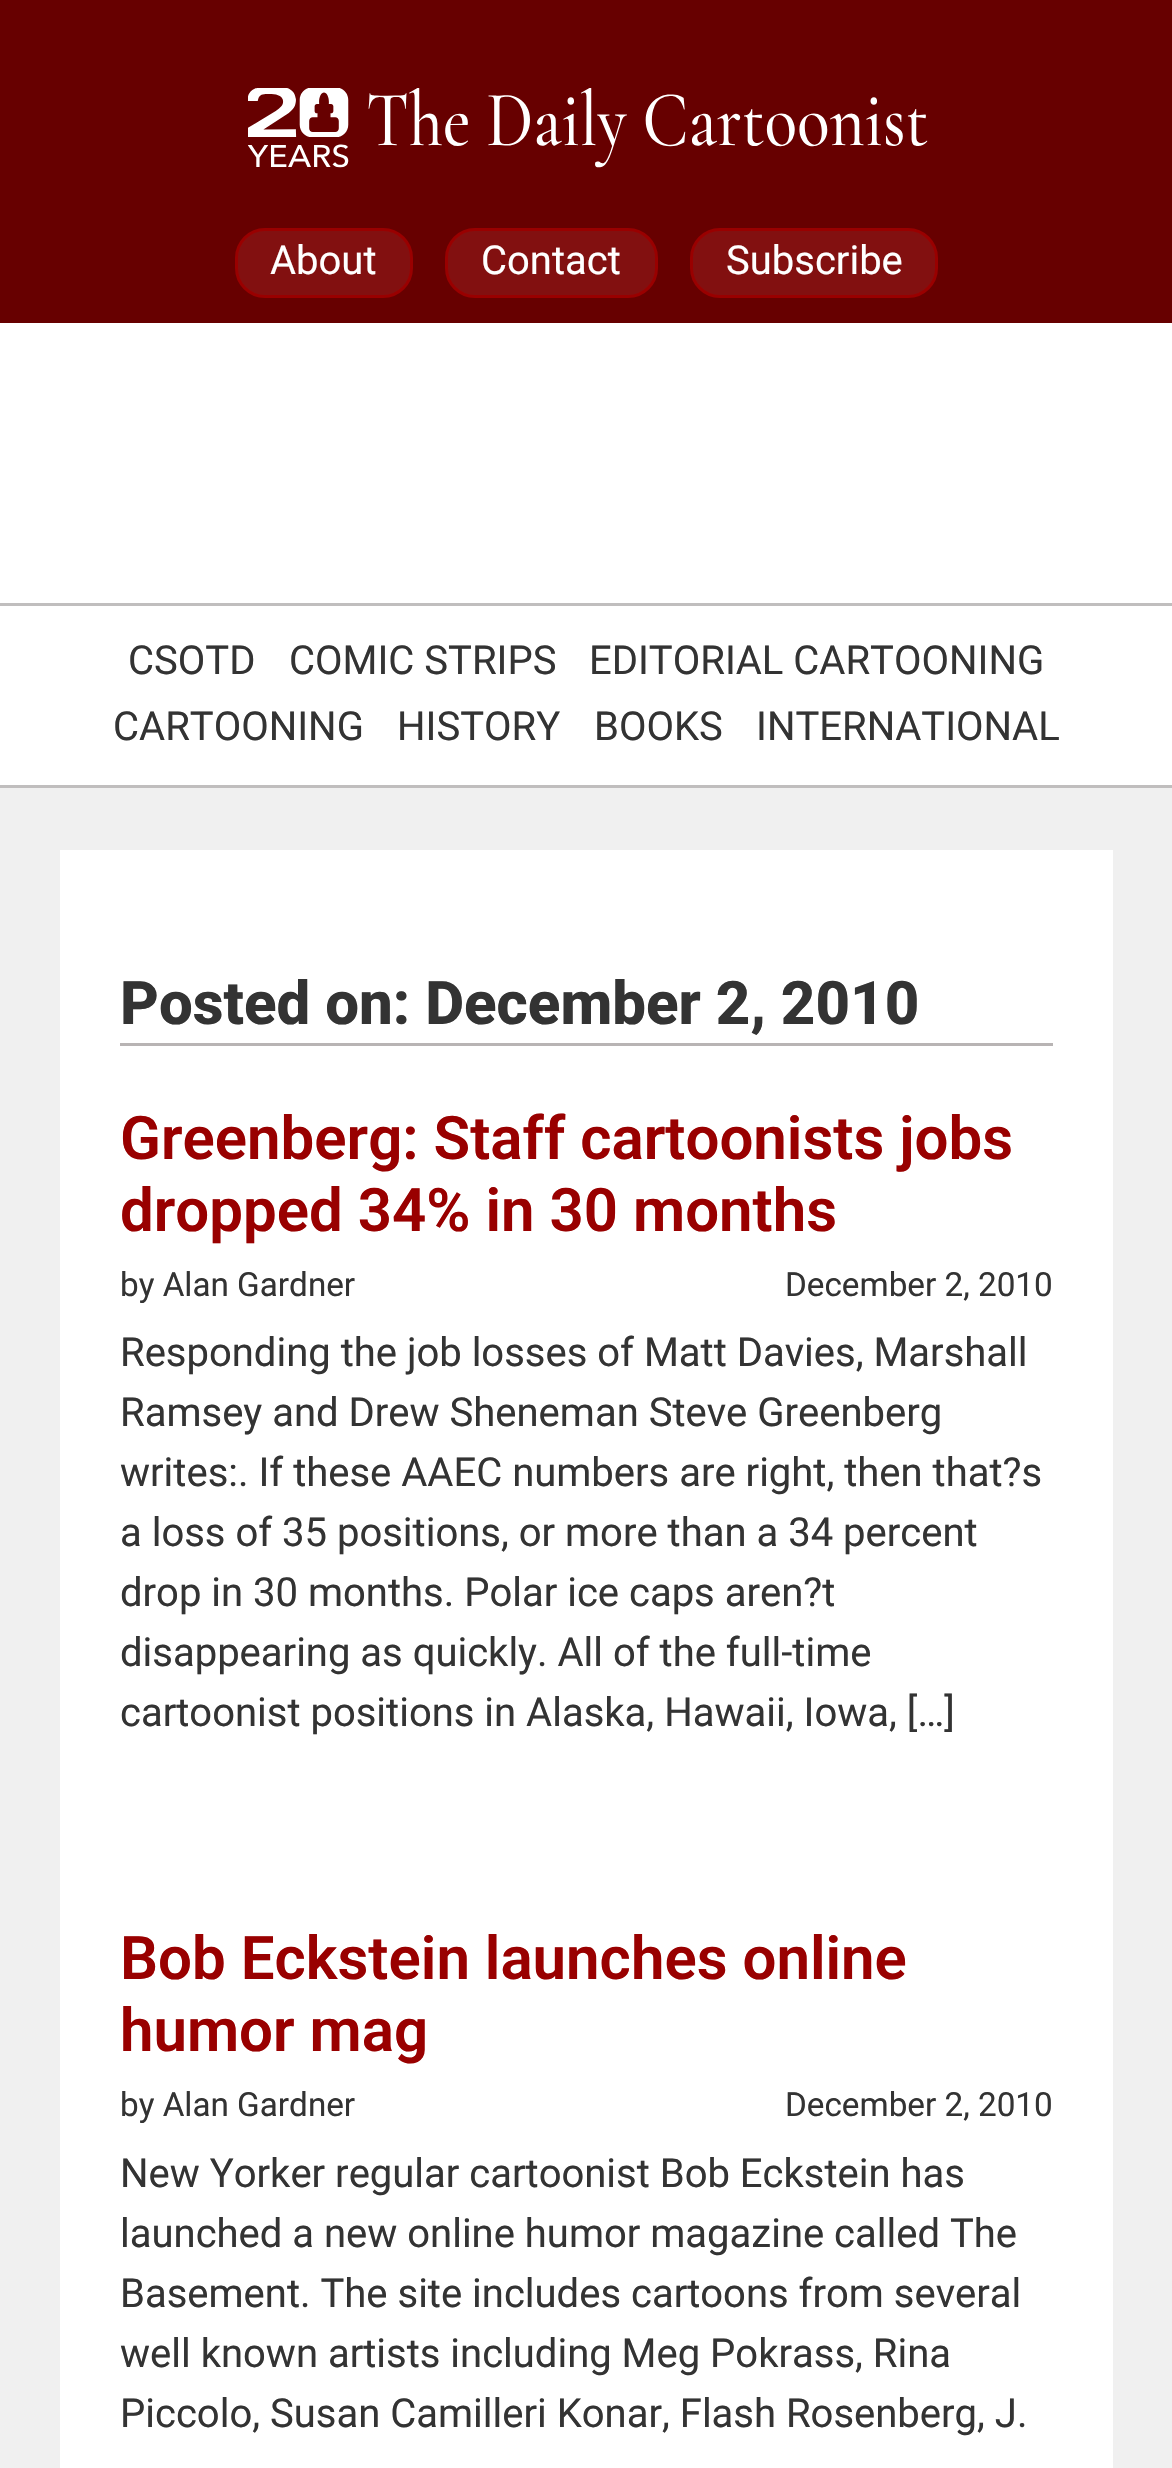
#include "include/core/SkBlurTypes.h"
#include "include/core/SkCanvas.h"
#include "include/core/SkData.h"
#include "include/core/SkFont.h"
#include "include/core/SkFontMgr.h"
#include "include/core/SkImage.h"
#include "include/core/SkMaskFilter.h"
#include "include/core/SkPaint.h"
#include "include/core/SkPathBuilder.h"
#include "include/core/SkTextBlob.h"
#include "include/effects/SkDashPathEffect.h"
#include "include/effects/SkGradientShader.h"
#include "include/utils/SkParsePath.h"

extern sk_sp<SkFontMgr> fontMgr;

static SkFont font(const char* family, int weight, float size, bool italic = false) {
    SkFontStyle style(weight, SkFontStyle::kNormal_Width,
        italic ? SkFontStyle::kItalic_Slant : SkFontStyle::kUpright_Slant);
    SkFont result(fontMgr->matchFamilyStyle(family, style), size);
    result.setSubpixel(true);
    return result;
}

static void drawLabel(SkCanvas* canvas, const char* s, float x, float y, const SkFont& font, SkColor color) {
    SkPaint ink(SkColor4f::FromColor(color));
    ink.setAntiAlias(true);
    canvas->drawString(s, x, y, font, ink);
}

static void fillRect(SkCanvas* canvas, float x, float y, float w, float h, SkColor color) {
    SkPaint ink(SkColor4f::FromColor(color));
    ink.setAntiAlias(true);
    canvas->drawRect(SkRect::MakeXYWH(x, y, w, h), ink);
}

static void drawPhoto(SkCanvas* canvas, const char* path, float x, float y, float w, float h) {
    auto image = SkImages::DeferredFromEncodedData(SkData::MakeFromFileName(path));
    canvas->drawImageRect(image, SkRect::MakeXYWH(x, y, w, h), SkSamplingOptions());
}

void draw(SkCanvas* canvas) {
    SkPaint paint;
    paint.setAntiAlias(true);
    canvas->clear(0xFFF0F0F0);
    fillRect(canvas, 0, 323, 1172, 462, 0xFFFFFFFF);
    fillRect(canvas, 0, 0, 1172, 323, 0xFF670000);
    drawPhoto(canvas, "assets/img1.png", 248, 88, 680, 80);
    paint.setColor(0xFF821010);
    canvas->drawRoundRect(SkRect::MakeXYWH(236.5f, 229.5f, 175, 67), 28.5f, 28.5f, paint);
    paint.setStroke(true);
    paint.setStrokeWidth(3);
    paint.setColor(0xFF990000);
    canvas->drawRoundRect(SkRect::MakeXYWH(236.5f, 229.5f, 175, 67), 28.5f, 28.5f, paint);
    SkFont font1 = font("Roboto", 400, 40);
    drawLabel(canvas, "About", 270, 274, font1, 0xFFFFFFFF);
    paint.setStroke(false);
    paint.setColor(0xFF821010);
    canvas->drawRoundRect(SkRect::MakeXYWH(446.5f, 229.5f, 210, 67), 28.5f, 28.5f, paint);
    paint.setStroke(true);
    paint.setColor(0xFF990000);
    canvas->drawRoundRect(SkRect::MakeXYWH(446.5f, 229.5f, 210, 67), 28.5f, 28.5f, paint);
    drawLabel(canvas, "Contact", 481, 274, font1, 0xFFFFFFFF);
    paint.setStroke(false);
    paint.setColor(0xFF821010);
    canvas->drawRoundRect(SkRect::MakeXYWH(691.5f, 229.5f, 245, 67), 28.5f, 28.5f, paint);
    paint.setStroke(true);
    paint.setColor(0xFF990000);
    canvas->drawRoundRect(SkRect::MakeXYWH(691.5f, 229.5f, 245, 67), 28.5f, 28.5f, paint);
    drawLabel(canvas, "Subscribe", 726, 274, font1, 0xFFFFFFFF);
    fillRect(canvas, 0, 603, 1172, 3, 0xFFC0BEBE);
    fillRect(canvas, 0, 785, 1172, 3, 0xFFC0BEBE);
    drawLabel(canvas, "CSOTD", 128, 674, font1, 0xFF333333);
    drawLabel(canvas, "COMIC STRIPS", 289, 674, font1, 0xFF333333);
    drawLabel(canvas, "EDITORIAL CARTOONING", 589, 674, font1, 0xFF333333);
    drawLabel(canvas, "CARTOONING", 113, 740, font1, 0xFF333333);
    drawLabel(canvas, "HISTORY", 397, 740, font1, 0xFF333333);
    drawLabel(canvas, "BOOKS", 594, 740, font1, 0xFF333333);
    drawLabel(canvas, "INTERNATIONAL", 756, 740, font1, 0xFF333333);
    fillRect(canvas, 60, 850, 1053, 1618, 0xFFFFFFFF);
    fillRect(canvas, 120, 1043, 933, 3, 0xFFB8B4B4);
    SkFont font2 = font("Roboto", 800, 60);
    drawLabel(canvas, "Posted on: December 2, 2010", 120, 1024, font2, 0xFF333333);
    SkFont font3 = font("Roboto", 600, 60);
    drawLabel(canvas, "Greenberg: Staff cartoonists jobs", 120, 1159, font3, 0xFF990000);
    drawLabel(canvas, "dropped 34% in 30 months", 120, 1231, font3, 0xFF990000);
    SkFont font4 = font("Roboto", 400, 33.25f);
    drawLabel(canvas, "by Alan Gardner", 120, 1296, font4, 0xFF333333);
    drawLabel(canvas, "December 2, 2010", 785, 1296, font4, 0xFF333333);
    drawLabel(canvas, "Responding the job losses of Matt Davies, Marshall", 120, 1366, font1, 0xFF333333);
    drawLabel(canvas, "Ramsey and Drew Sheneman Steve Greenberg", 120, 1426, font1, 0xFF333333);
    drawLabel(canvas, "writes:. If these AAEC numbers are right, then that?s", 120, 1486, font1, 0xFF333333);
    drawLabel(canvas, "a loss of 35 positions, or more than a 34 percent", 120, 1546, font1, 0xFF333333);
    drawLabel(canvas, "drop in 30 months. Polar ice caps aren?t", 120, 1606, font1, 0xFF333333);
    drawLabel(canvas, "disappearing as quickly. All of the full-time", 120, 1666, font1, 0xFF333333);
    drawLabel(canvas, "cartoonist positions in Alaska, Hawaii, Iowa, […]", 120, 1726, font1, 0xFF333333);
    drawLabel(canvas, "Bob Eckstein launches online", 120, 1979, font3, 0xFF990000);
    drawLabel(canvas, "humor mag", 120, 2051, font3, 0xFF990000);
    drawLabel(canvas, "by Alan Gardner", 120, 2116, font4, 0xFF333333);
    drawLabel(canvas, "December 2, 2010", 785, 2116, font4, 0xFF333333);
    drawLabel(canvas, "New Yorker regular cartoonist Bob Eckstein has", 120, 2187, font1, 0xFF333333);
    drawLabel(canvas, "launched a new online humor magazine called The", 120, 2247, font1, 0xFF333333);
    drawLabel(canvas, "Basement. The site includes cartoons from several", 120, 2307, font1, 0xFF333333);
    drawLabel(canvas, "well known artists including Meg Pokrass, Rina", 120, 2367, font1, 0xFF333333);
    drawLabel(canvas, "Piccolo, Susan Camilleri Konar, Flash Rosenberg, J.", 120, 2427, font1, 0xFF333333);
}
